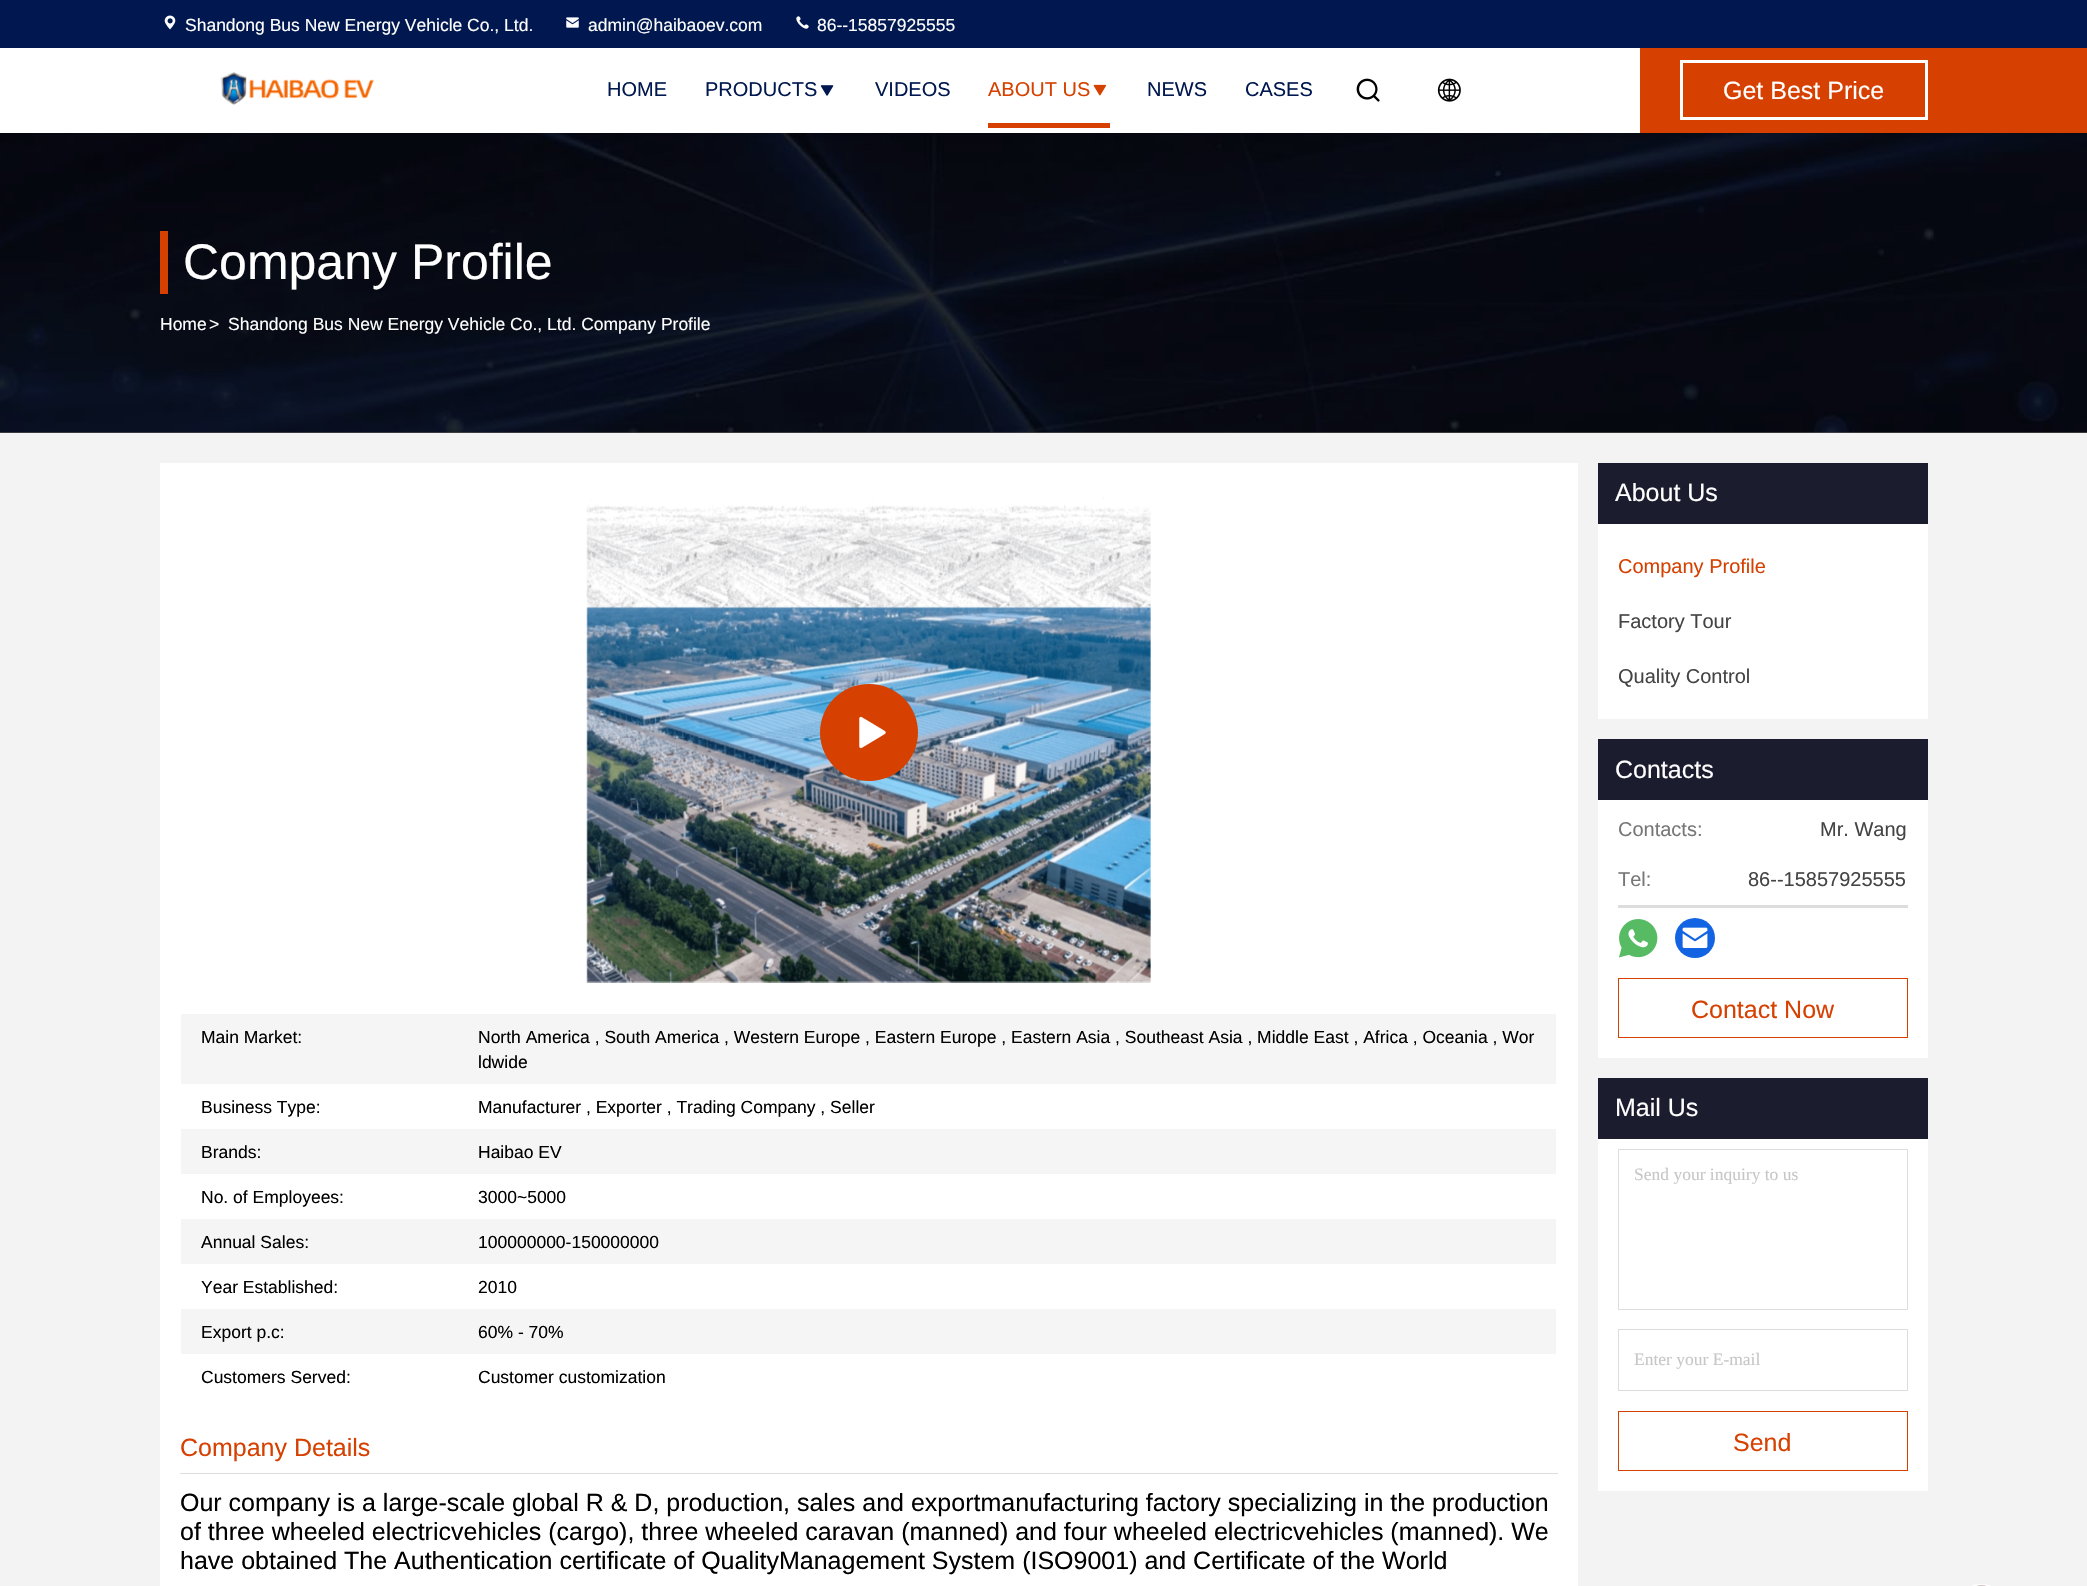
#include "include/core/SkBlurTypes.h"
#include "include/core/SkCanvas.h"
#include "include/core/SkData.h"
#include "include/core/SkFont.h"
#include "include/core/SkFontMgr.h"
#include "include/core/SkImage.h"
#include "include/core/SkMaskFilter.h"
#include "include/core/SkPaint.h"
#include "include/core/SkPathBuilder.h"
#include "include/core/SkTextBlob.h"
#include "include/effects/SkDashPathEffect.h"
#include "include/effects/SkGradientShader.h"
#include "include/utils/SkParsePath.h"

extern sk_sp<SkFontMgr> fontMgr;

static SkFont font(const char* family, int weight, float size, bool italic = false) {
    SkFontStyle style(weight, SkFontStyle::kNormal_Width,
        italic ? SkFontStyle::kItalic_Slant : SkFontStyle::kUpright_Slant);
    SkFont result(fontMgr->matchFamilyStyle(family, style), size);
    result.setSubpixel(true);
    return result;
}

static void drawLabel(SkCanvas* canvas, const char* s, float x, float y, const SkFont& font, SkColor color) {
    SkPaint ink(SkColor4f::FromColor(color));
    ink.setAntiAlias(true);
    canvas->drawString(s, x, y, font, ink);
}

static void fillRect(SkCanvas* canvas, float x, float y, float w, float h, SkColor color) {
    SkPaint ink(SkColor4f::FromColor(color));
    ink.setAntiAlias(true);
    canvas->drawRect(SkRect::MakeXYWH(x, y, w, h), ink);
}

static void fillRRect(SkCanvas* canvas, float x, float y, float w, float h, float radius, SkColor color) {
    SkPaint ink(SkColor4f::FromColor(color));
    ink.setAntiAlias(true);
    canvas->drawRoundRect(SkRect::MakeXYWH(x, y, w, h), radius, radius, ink);
}

static void drawPhoto(SkCanvas* canvas, const char* path, float x, float y, float w, float h) {
    auto image = SkImages::DeferredFromEncodedData(SkData::MakeFromFileName(path));
    canvas->drawImageRect(image, SkRect::MakeXYWH(x, y, w, h), SkSamplingOptions());
}

void draw(SkCanvas* canvas) {
    SkPaint paint;
    paint.setAntiAlias(true);
    canvas->clear(0xFFF3F3F3);
    fillRect(canvas, 0, 432, 2087, 1, 0xFF494949);
    drawPhoto(canvas, "assets/img9.png", 0, 133, 2087, 300);
    paint.setColor(0x26000000);
    paint.setMaskFilter(SkMaskFilter::MakeBlur(kNormal_SkBlurStyle, 4));
    canvas->drawRect(SkRect::MakeXYWH(0, 3, 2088, 132), paint);
    paint.setMaskFilter(nullptr);
    fillRect(canvas, 0, 0, 2087, 48, 0xFF00184F);
    drawPhoto(canvas, "assets/img1.png", 164, 15, 12, 15);
    SkFont font1 = font("Liberation Sans", 400, 17.5f);
    drawLabel(canvas, "Shandong Bus New Energy Vehicle Co., Ltd.", 185, 31, font1, 0xFFFFFFFF);
    drawPhoto(canvas, "assets/img2.png", 566, 17, 13, 11);
    drawLabel(canvas, "admin@haibaoev.com", 588, 31, font1, 0xFFFFFFFF);
    drawPhoto(canvas, "assets/img3.png", 796, 16, 13, 13);
    drawLabel(canvas, "86--15857925555", 817, 31, font1, 0xFFFFFFFF);
    fillRect(canvas, 0, 48, 1640, 85, 0xFFFFFFFF);
    drawPhoto(canvas, "assets/img4.png", 220, 72, 154, 33);
    SkFont font2 = font("Liberation Sans", 400, 20);
    drawLabel(canvas, "HOME", 607, 96, font2, 0xFF00184F);
    drawLabel(canvas, "PRODUCTS", 705, 96, font2, 0xFF00184F);
    drawPhoto(canvas, "assets/img5.png", 820, 85, 14, 11);
    drawLabel(canvas, "VIDEOS", 875, 96, font2, 0xFF00184F);
    drawLabel(canvas, "ABOUT US", 988, 96, font2, 0xFFD64000);
    drawPhoto(canvas, "assets/img6.png", 1093, 84, 14, 12);
    fillRect(canvas, 988, 123, 122, 5, 0xFFD64000);
    drawLabel(canvas, "NEWS", 1147, 96, font2, 0xFF00184F);
    drawLabel(canvas, "CASES", 1245, 96, font2, 0xFF00184F);
    drawPhoto(canvas, "assets/img7.png", 1356, 78, 24, 24);
    drawPhoto(canvas, "assets/img8.png", 1437, 78, 24, 24);
    fillRect(canvas, 1640, 48, 447, 85, 0xFFD64000);
    paint.setStroke(true);
    paint.setStrokeWidth(3);
    paint.setColor(0xFFFFFFFF);
    canvas->drawRect(SkRect::MakeXYWH(1681.5f, 61.5f, 245, 57), paint);
    SkFont font3 = font("Liberation Sans", 400, 25);
    drawLabel(canvas, "Get Best Price", 1723, 99, font3, 0xFFFFFFFF);
    fillRect(canvas, 160, 231, 8, 63, 0xFFD64000);
    SkFont font4 = font("Liberation Sans", 400, 50);
    drawLabel(canvas, "Company Profile", 183, 279, font4, 0xFFFFFFFF);
    drawLabel(canvas, "Home", 160, 330, font1, 0xFFFFFFFF);
    drawLabel(canvas, ">", 209, 330, font1, 0xFFFFFFFF);
    drawLabel(canvas, "Shandong Bus New Energy Vehicle Co., Ltd. Company Profile", 228, 330, font1, 0xFFFFFFFF);
    fillRect(canvas, 160, 463, 1418, 1123, 0xFFFFFFFF);
    drawPhoto(canvas, "assets/img10.png", 586, 497, 565, 486);
    fillRRect(canvas, 820, 684, 98, 97, 48.5f, 0xFFD64000);
    drawPhoto(canvas, "assets/img11.png", 859, 716, 27, 33);
    fillRect(canvas, 181, 1014, 1375, 70, 0xFFF5F5F5);
    drawLabel(canvas, "Main Market:", 201, 1043, font1, 0xFF000000);
    drawLabel(canvas, "North America , South America , Western Europe , Eastern Europe , Eastern Asia , Southeast Asia , Middle East , Africa , Oceania , Wor", 478, 1043, font1, 0xFF000000);
    drawLabel(canvas, "ldwide", 478, 1068, font1, 0xFF000000);
    drawLabel(canvas, "Business Type:", 201, 1113, font1, 0xFF000000);
    drawLabel(canvas, "Manufacturer , Exporter , Trading Company , Seller", 478, 1113, font1, 0xFF000000);
    fillRect(canvas, 181, 1129, 1375, 45, 0xFFF5F5F5);
    drawLabel(canvas, "Brands:", 201, 1158, font1, 0xFF000000);
    drawLabel(canvas, "Haibao EV", 478, 1158, font1, 0xFF000000);
    drawLabel(canvas, "No. of Employees:", 201, 1203, font1, 0xFF000000);
    drawLabel(canvas, "3000~5000", 478, 1203, font1, 0xFF000000);
    fillRect(canvas, 181, 1219, 1375, 45, 0xFFF5F5F5);
    drawLabel(canvas, "Annual Sales:", 201, 1248, font1, 0xFF000000);
    drawLabel(canvas, "100000000-150000000", 478, 1248, font1, 0xFF000000);
    drawLabel(canvas, "Year Established:", 201, 1293, font1, 0xFF000000);
    drawLabel(canvas, "2010", 478, 1293, font1, 0xFF000000);
    fillRect(canvas, 181, 1309, 1375, 45, 0xFFF5F5F5);
    drawLabel(canvas, "Export p.c:", 201, 1338, font1, 0xFF000000);
    drawLabel(canvas, "60% - 70%", 478, 1338, font1, 0xFF000000);
    drawLabel(canvas, "Customers Served:", 201, 1383, font1, 0xFF000000);
    drawLabel(canvas, "Customer customization", 478, 1383, font1, 0xFF000000);
    fillRect(canvas, 180, 1473, 1378, 1, 0xFFDDDDDD);
    drawLabel(canvas, "Company Details", 180, 1456, font3, 0xFFD64000);
    drawLabel(canvas, "Our company is a large-scale global R & D, production, sales and exportmanufacturing factory specializing in the production", 180, 1511, font3, 0xFF000000);
    drawLabel(canvas, "of three wheeled electricvehicles (cargo), three wheeled caravan (manned) and four wheeled electricvehicles (manned). We", 180, 1540, font3, 0xFF000000);
    drawLabel(canvas, "have obtained The Authentication certificate of QualityManagement System (ISO9001) and Certificate of the World", 180, 1569, font3, 0xFF000000);
    fillRect(canvas, 1598, 463, 330, 61, 0xFF1B1D2E);
    drawLabel(canvas, "About Us", 1615, 501, font3, 0xFFFFFFFF);
    fillRect(canvas, 1598, 524, 330, 195, 0xFFFFFFFF);
    drawLabel(canvas, "Company Profile", 1618, 573, font2, 0xFFD64000);
    drawLabel(canvas, "Factory Tour", 1618, 628, font2, 0xFF444444);
    drawLabel(canvas, "Quality Control", 1618, 683, font2, 0xFF444444);
    fillRect(canvas, 1598, 739, 330, 61, 0xFF1B1D2E);
    drawLabel(canvas, "Contacts", 1615, 778, font3, 0xFFFFFFFF);
    fillRect(canvas, 1598, 800, 330, 258, 0xFFFFFFFF);
    drawLabel(canvas, "Contacts:", 1618, 836, font2, 0xFF777777);
    drawLabel(canvas, "Mr. Wang", 1820, 836, font2, 0xFF444444);
    drawLabel(canvas, "Tel:", 1618, 886, font2, 0xFF777777);
    drawLabel(canvas, "86--15857925555", 1748, 886, font2, 0xFF444444);
    fillRect(canvas, 1618, 905, 290, 3, 0xFFDDDDDD);
    drawPhoto(canvas, "assets/img12.png", 1619, 919, 39, 39);
    paint.setStroke(false);
    paint.setColor(0xFF1264E3);
    canvas->drawCircle(1695, 938, 20, paint);
    drawPhoto(canvas, "assets/img13.png", 1682, 927, 26, 21);
    paint.setStroke(true);
    paint.setStrokeWidth(1);
    paint.setColor(0xFFD64000);
    canvas->drawRect(SkRect::MakeXYWH(1618.5f, 978.5f, 289, 59), paint);
    drawLabel(canvas, "Contact Now", 1691, 1018, font3, 0xFFD64000);
    fillRect(canvas, 1598, 1078, 330, 61, 0xFF1B1D2E);
    drawLabel(canvas, "Mail Us", 1615, 1116, font3, 0xFFFFFFFF);
    fillRect(canvas, 1598, 1139, 330, 352, 0xFFFFFFFF);
    paint.setColor(0xFFDDDDDD);
    canvas->drawRect(SkRect::MakeXYWH(1618.5f, 1149.5f, 289, 160), paint);
    SkFont font5 = font("Liberation Serif", 400, 17.5f);
    drawLabel(canvas, "Send your inquiry to us", 1634, 1180, font5, 0xFFC7C7C7);
    canvas->drawRect(SkRect::MakeXYWH(1618.5f, 1329.5f, 289, 61), paint);
    drawLabel(canvas, "Enter your E-mail", 1634, 1365, font5, 0xFFC7C7C7);
    paint.setColor(0xFFD64000);
    canvas->drawRect(SkRect::MakeXYWH(1618.5f, 1411.5f, 289, 59), paint);
    drawLabel(canvas, "Send", 1733, 1451, font3, 0xFFD64000);
    drawPhoto(canvas, "assets/img14.png", 1972, 1584, 19, 2);
}
